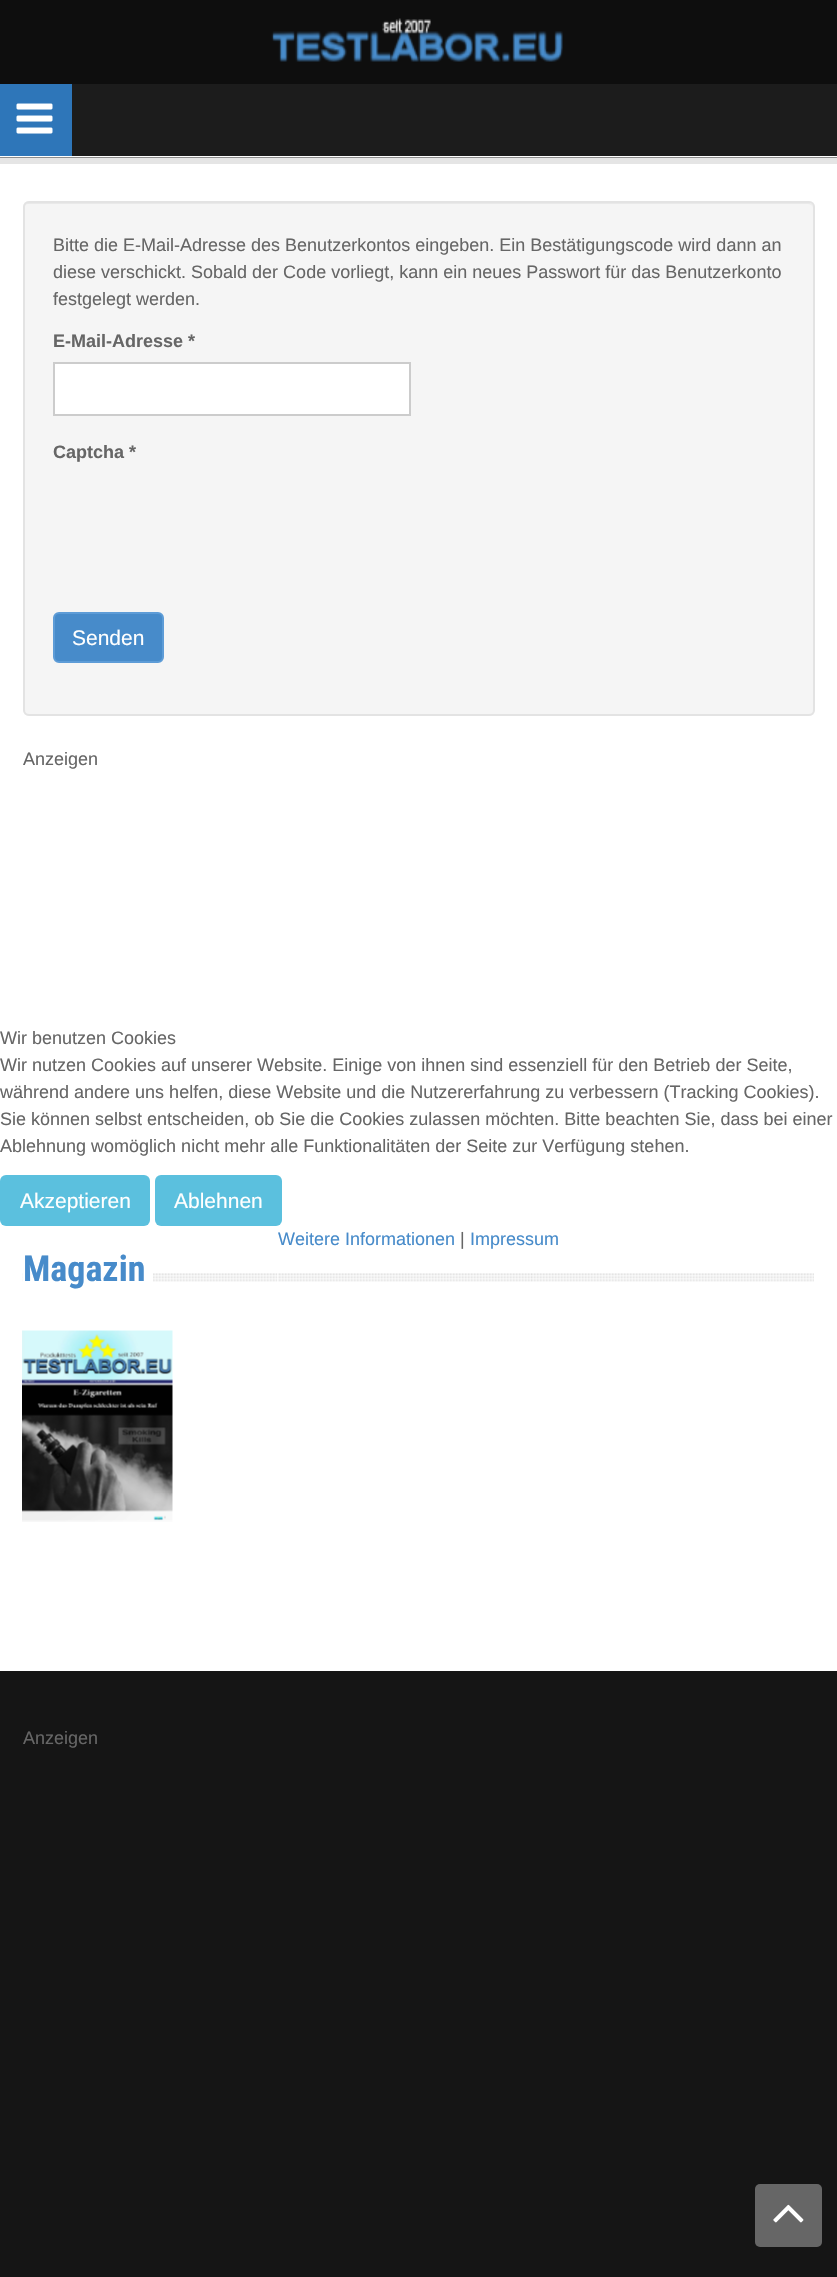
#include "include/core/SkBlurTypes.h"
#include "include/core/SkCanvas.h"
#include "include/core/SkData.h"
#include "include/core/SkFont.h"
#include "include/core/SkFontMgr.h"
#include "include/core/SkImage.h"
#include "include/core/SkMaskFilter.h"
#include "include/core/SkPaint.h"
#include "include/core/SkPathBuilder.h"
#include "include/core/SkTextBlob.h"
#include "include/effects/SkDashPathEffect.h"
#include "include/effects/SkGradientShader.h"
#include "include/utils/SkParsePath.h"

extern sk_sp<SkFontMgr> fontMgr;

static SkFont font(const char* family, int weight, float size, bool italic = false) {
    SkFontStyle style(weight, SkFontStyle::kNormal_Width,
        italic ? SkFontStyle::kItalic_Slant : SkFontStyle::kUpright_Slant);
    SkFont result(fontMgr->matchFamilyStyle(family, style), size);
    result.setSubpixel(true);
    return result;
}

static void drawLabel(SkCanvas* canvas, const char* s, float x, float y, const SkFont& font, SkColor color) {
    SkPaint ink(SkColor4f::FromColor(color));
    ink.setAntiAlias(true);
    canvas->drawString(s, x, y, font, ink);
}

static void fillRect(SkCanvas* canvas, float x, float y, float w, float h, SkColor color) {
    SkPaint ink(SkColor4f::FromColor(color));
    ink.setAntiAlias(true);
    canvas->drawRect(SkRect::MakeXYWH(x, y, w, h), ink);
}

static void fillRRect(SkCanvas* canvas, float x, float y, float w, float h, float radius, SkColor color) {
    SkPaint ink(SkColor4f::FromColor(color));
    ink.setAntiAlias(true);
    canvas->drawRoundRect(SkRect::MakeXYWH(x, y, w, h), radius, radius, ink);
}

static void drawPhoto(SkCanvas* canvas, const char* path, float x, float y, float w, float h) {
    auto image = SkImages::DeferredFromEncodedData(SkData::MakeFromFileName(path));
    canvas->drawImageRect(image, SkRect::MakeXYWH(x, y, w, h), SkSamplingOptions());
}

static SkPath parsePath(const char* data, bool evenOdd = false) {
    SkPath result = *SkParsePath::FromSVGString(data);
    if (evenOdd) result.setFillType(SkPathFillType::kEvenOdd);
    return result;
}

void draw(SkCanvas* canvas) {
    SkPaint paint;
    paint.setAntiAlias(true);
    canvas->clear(0xFFFFFFFF);
    fillRect(canvas, 0, 0, 837, 84, 0xFF0E0E0E);
    drawPhoto(canvas, "assets/img1.png", 271, 18, 292, 44);
    fillRect(canvas, 0, 84, 837, 74, 0xFF1C1C1C);
    drawPhoto(canvas, "assets/img2.png", 0, 156, 837, 2);
    fillRect(canvas, 0, 158, 837, 6, 0xFFE5E5E5);
    fillRect(canvas, 0, 84, 72, 72, 0xFF2E76B9);
    drawPhoto(canvas, "assets/img3.png", 16, 103, 37, 31);
    fillRRect(canvas, 23, 201, 792, 515, 6, 0xFFF5F5F5);
    paint.setColor(0xFFE9E9E9);
    canvas->drawPath(parsePath("M28 204H808C811 204 813 206 813 208C813 205 811 203 808 203H29C26 203 24 205 24 208C24 206 26 204 28 204Z"), paint);
    paint.setStroke(true);
    paint.setStrokeWidth(2);
    paint.setColor(0xFFE3E3E3);
    canvas->drawRoundRect(SkRect::MakeXYWH(24, 202, 790, 513), 5, 5, paint);
    SkFont font1 = font("Liberation Sans", 400, 18);
    drawLabel(canvas, "Bitte die E-Mail-Adresse des Benutzerkontos eingeben. Ein Bestätigungscode wird dann an", 53, 251, font1, 0xFF666666);
    drawLabel(canvas, "diese verschickt. Sobald der Code vorliegt, kann ein neues Passwort für das Benutzerkonto", 53, 278, font1, 0xFF666666);
    drawLabel(canvas, "festgelegt werden.", 53, 305, font1, 0xFF666666);
    SkFont font2 = font("Liberation Sans", 700, 18);
    drawLabel(canvas, "E-Mail-Adresse *", 53, 347, font2, 0xFF666666);
    paint.setStroke(false);
    paint.setColor(0xFFFFFFFF);
    canvas->drawRect(SkRect::MakeXYWH(54, 363, 356, 52), paint);
    paint.setStroke(true);
    paint.setColor(0xFFCCCCCC);
    canvas->drawRect(SkRect::MakeXYWH(54, 363, 356, 52), paint);
    drawLabel(canvas, "Captcha *", 53, 458, font2, 0xFF666666);
    paint.setStroke(false);
    paint.setColor(0xFF478BCA);
    canvas->drawRoundRect(SkRect::MakeXYWH(54, 613, 109, 49), 5, 5, paint);
    paint.setStroke(true);
    paint.setColor(0xFF5D9CD7);
    canvas->drawRoundRect(SkRect::MakeXYWH(54, 613, 109, 49), 5, 5, paint);
    SkFont font3 = font("Liberation Sans", 400, 21);
    drawLabel(canvas, "Senden", 72, 645, font3, 0xFFFFFFFF);
    drawLabel(canvas, "Anzeigen", 23, 765, font1, 0xFF666666);
    drawPhoto(canvas, "assets/img4.png", 22, 1273, 792, 9);
    fillRect(canvas, 23, 1273, 130, 9, 0xFFFFFFFF);
    SkFont font4 = font("Roboto Condensed", 700, 36);
    drawLabel(canvas, "Magazin", 23, 1281, font4, 0xFF478BCA);
    drawPhoto(canvas, "assets/img5.png", 22, 1330, 151, 192);
    fillRect(canvas, 0, 1671, 837, 606, 0xFF151515);
    drawLabel(canvas, "Anzeigen", 23, 1744, font1, 0xFF666666);
    fillRRect(canvas, 755, 2184, 67, 63, 5, 0xFF666666);
    drawPhoto(canvas, "assets/img6.png", 773, 2204, 31, 19);
    drawLabel(canvas, "Wir benutzen Cookies", 0, 1044, font1, 0xFF666666);
    drawLabel(canvas, "Wir nutzen Cookies auf unserer Website. Einige von ihnen sind essenziell für den Betrieb der Seite,", 0, 1071, font1, 0xFF666666);
    drawLabel(canvas, "während andere uns helfen, diese Website und die Nutzererfahrung zu verbessern (Tracking Cookies).", 0, 1098, font1, 0xFF666666);
    drawLabel(canvas, "Sie können selbst entscheiden, ob Sie die Cookies zulassen möchten. Bitte beachten Sie, dass bei einer", 0, 1125, font1, 0xFF666666);
    drawLabel(canvas, "Ablehnung womöglich nicht mehr alle Funktionalitäten der Seite zur Verfügung stehen.", 0, 1152, font1, 0xFF666666);
    fillRRect(canvas, 0, 1175, 150, 51, 6, 0xFF5BC0DE);
    drawLabel(canvas, "Akzeptieren", 20, 1208, font3, 0xFFFFFFFF);
    fillRRect(canvas, 155, 1175, 127, 51, 6, 0xFF5BC0DE);
    drawLabel(canvas, "Ablehnen", 174, 1208, font3, 0xFFFFFFFF);
    drawLabel(canvas, "Weitere Informationen", 278, 1245, font1, 0xFF478BCA);
    drawLabel(canvas, "|", 460, 1245, font1, 0xFF666666);
    drawLabel(canvas, "Impressum", 470, 1245, font1, 0xFF478BCA);
}
